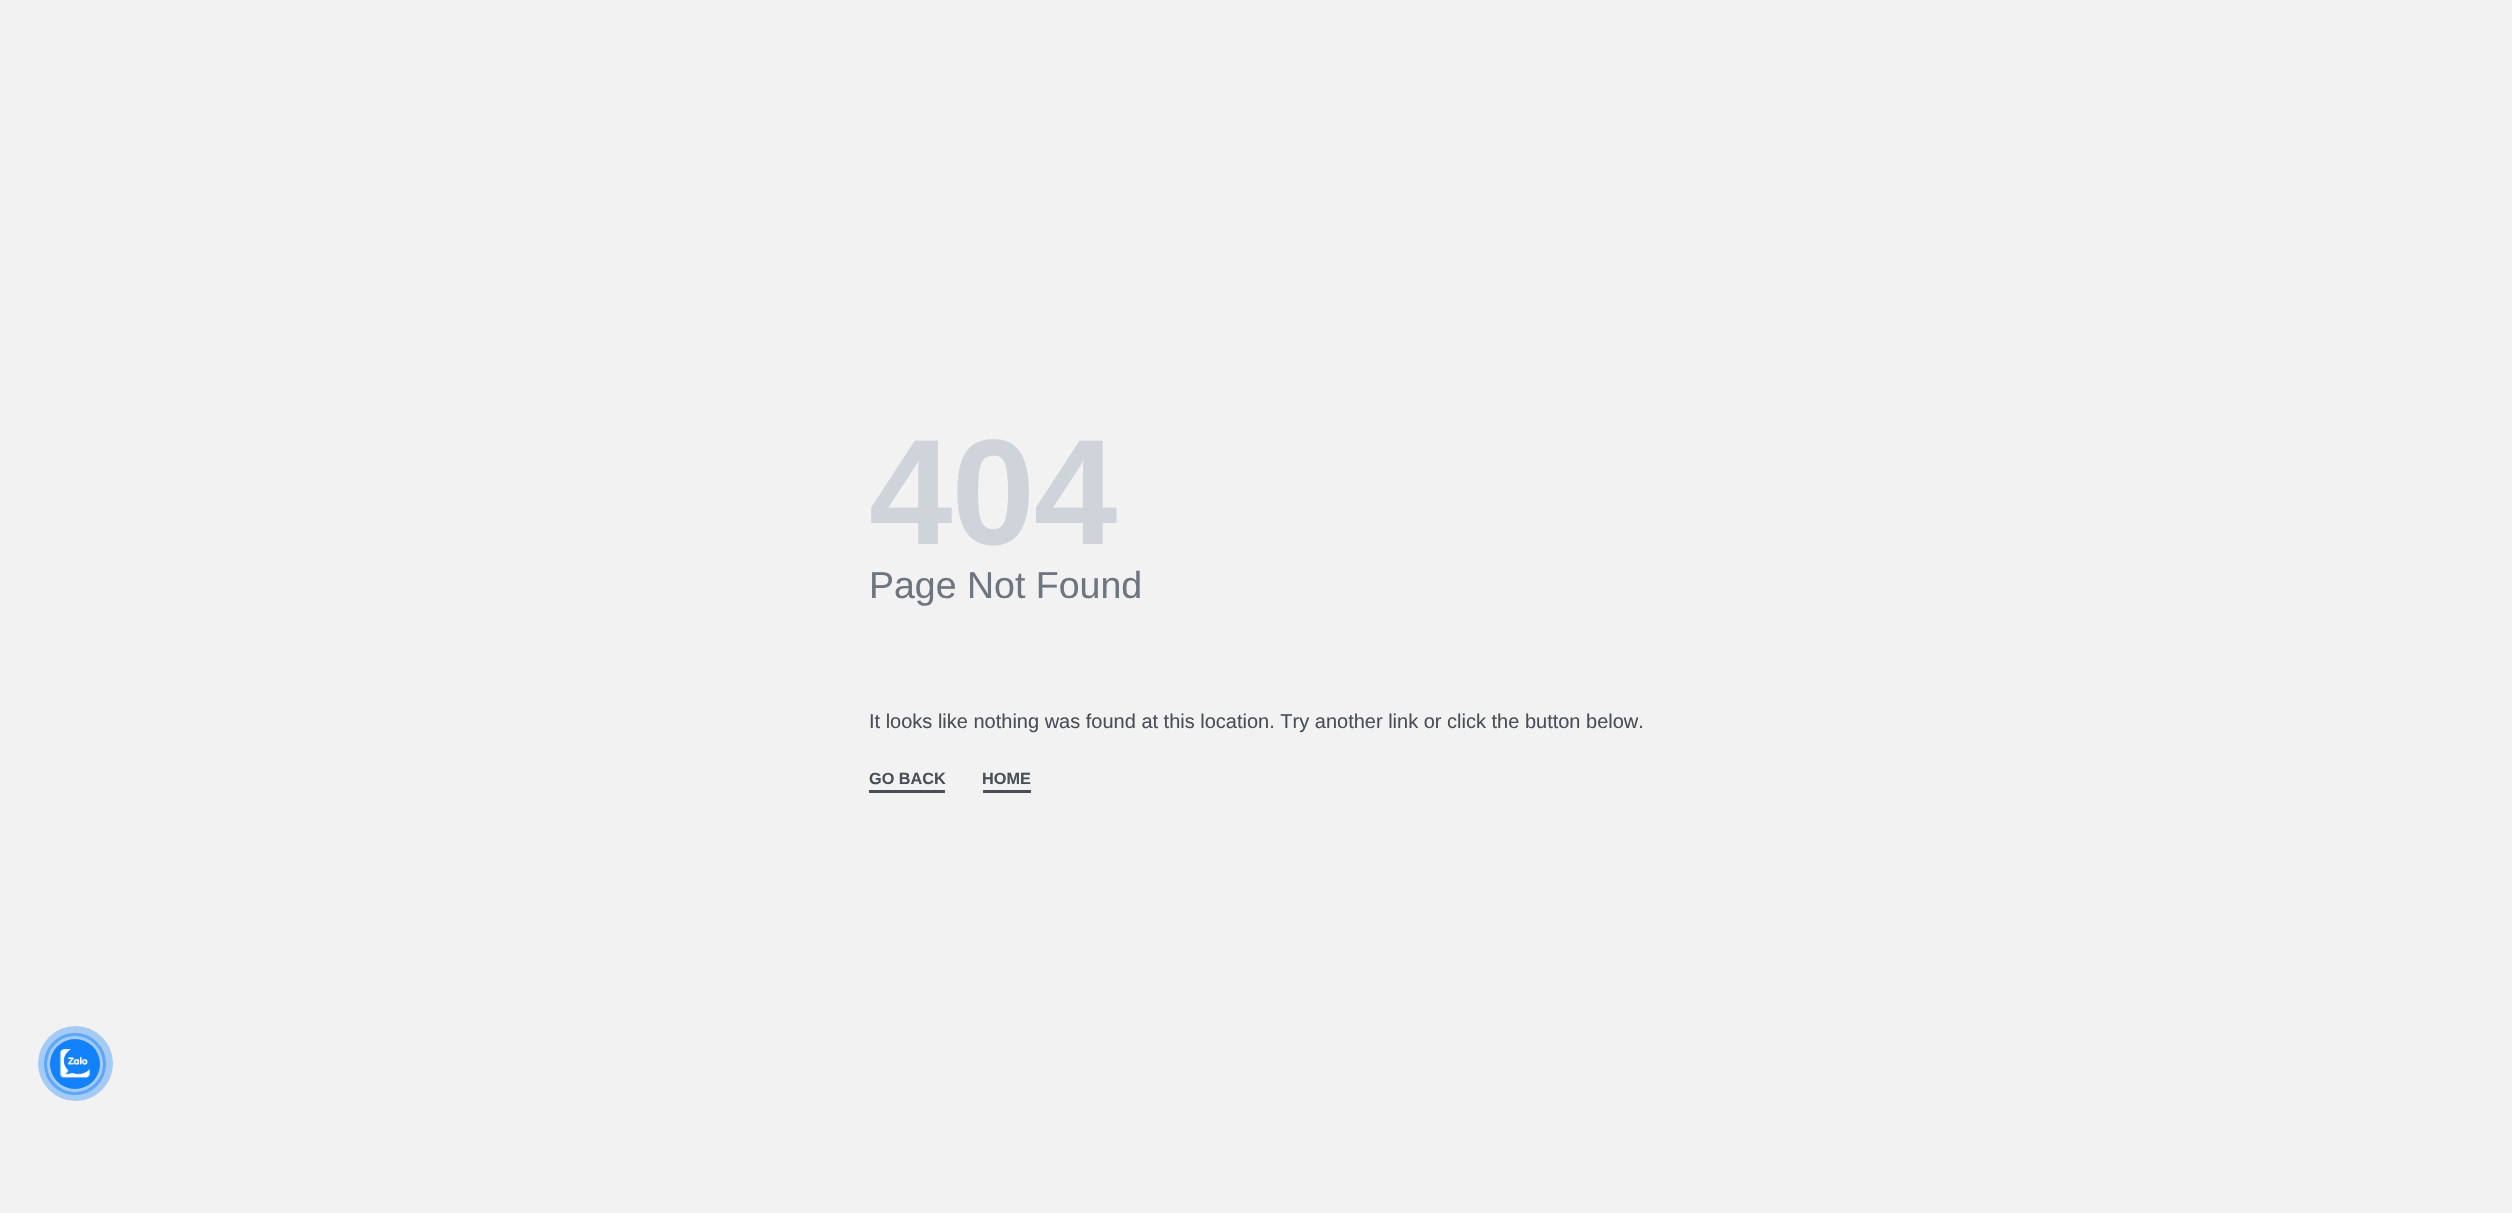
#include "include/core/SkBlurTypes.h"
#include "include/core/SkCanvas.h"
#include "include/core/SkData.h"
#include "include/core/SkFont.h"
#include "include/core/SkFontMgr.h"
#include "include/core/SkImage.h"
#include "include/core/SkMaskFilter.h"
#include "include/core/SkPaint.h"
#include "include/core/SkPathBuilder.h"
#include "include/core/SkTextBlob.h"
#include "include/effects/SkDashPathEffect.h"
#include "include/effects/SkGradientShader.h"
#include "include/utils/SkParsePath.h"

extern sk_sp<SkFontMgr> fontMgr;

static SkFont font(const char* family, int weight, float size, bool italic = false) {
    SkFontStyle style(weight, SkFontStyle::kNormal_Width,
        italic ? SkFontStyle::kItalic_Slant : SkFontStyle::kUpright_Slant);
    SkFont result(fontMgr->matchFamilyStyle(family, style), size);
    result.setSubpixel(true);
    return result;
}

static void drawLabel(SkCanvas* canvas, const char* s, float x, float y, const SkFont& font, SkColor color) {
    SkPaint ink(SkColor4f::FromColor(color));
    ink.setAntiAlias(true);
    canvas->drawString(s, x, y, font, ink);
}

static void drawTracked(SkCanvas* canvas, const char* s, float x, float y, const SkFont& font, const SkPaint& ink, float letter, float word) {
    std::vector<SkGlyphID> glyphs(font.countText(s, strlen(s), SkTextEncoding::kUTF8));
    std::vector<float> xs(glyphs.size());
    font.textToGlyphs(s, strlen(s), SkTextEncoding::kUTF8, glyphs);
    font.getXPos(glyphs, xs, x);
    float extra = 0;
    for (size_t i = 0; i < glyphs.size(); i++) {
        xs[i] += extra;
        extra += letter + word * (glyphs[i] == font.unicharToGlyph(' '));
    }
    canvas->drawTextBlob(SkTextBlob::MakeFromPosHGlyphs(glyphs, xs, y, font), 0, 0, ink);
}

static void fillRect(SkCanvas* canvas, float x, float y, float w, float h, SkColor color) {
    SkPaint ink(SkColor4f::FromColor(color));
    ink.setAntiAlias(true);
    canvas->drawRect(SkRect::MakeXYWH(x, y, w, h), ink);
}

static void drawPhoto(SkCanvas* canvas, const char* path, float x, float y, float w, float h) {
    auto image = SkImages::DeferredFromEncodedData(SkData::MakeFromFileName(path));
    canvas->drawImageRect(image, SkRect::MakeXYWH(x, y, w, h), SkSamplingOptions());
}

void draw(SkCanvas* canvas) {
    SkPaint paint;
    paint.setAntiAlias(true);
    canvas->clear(0xFFF2F2F2);
    SkFont font1 = font("Liberation Sans", 700, 150);
    paint.setColor(0xFFCED4DA);
    drawTracked(canvas, "404", 869, 544, font1, paint, -1, 0);
    SkFont font2 = font("Liberation Sans", 400, 37.5f);
    drawLabel(canvas, "Page Not Found", 869, 598, font2, 0xFF6D757E);
    SkFont font3 = font("Liberation Sans", 400, 20);
    drawLabel(canvas, "It looks like nothing was found at this location. Try another link or click the button below.", 869, 728, font3, 0xFF484F56);
    SkFont font4 = font("Liberation Sans", 700, 16.25f);
    drawLabel(canvas, "GO BACK", 869, 784, font4, 0xFF484F56);
    fillRect(canvas, 869, 790, 76, 3, 0xFF484F56);
    drawLabel(canvas, "HOME", 982, 784, font4, 0xFF484F56);
    fillRect(canvas, 983, 790, 48, 3, 0xFF484F56);
    paint.setStroke(true);
    paint.setStrokeWidth(3);
    paint.setColor(0xFF82BAF7);
    canvas->drawCircle(75, 1064, 29.5f, paint);
    paint.setStroke(false);
    paint.setColor(0x571182FC);
    canvas->drawCircle(75.5f, 1063.5f, 37.5f, paint);
    paint.setColor(0xFF1182FC);
    canvas->drawCircle(75, 1064, 25, paint);
    drawPhoto(canvas, "assets/img1.png", 59, 1049, 31, 29);
}
